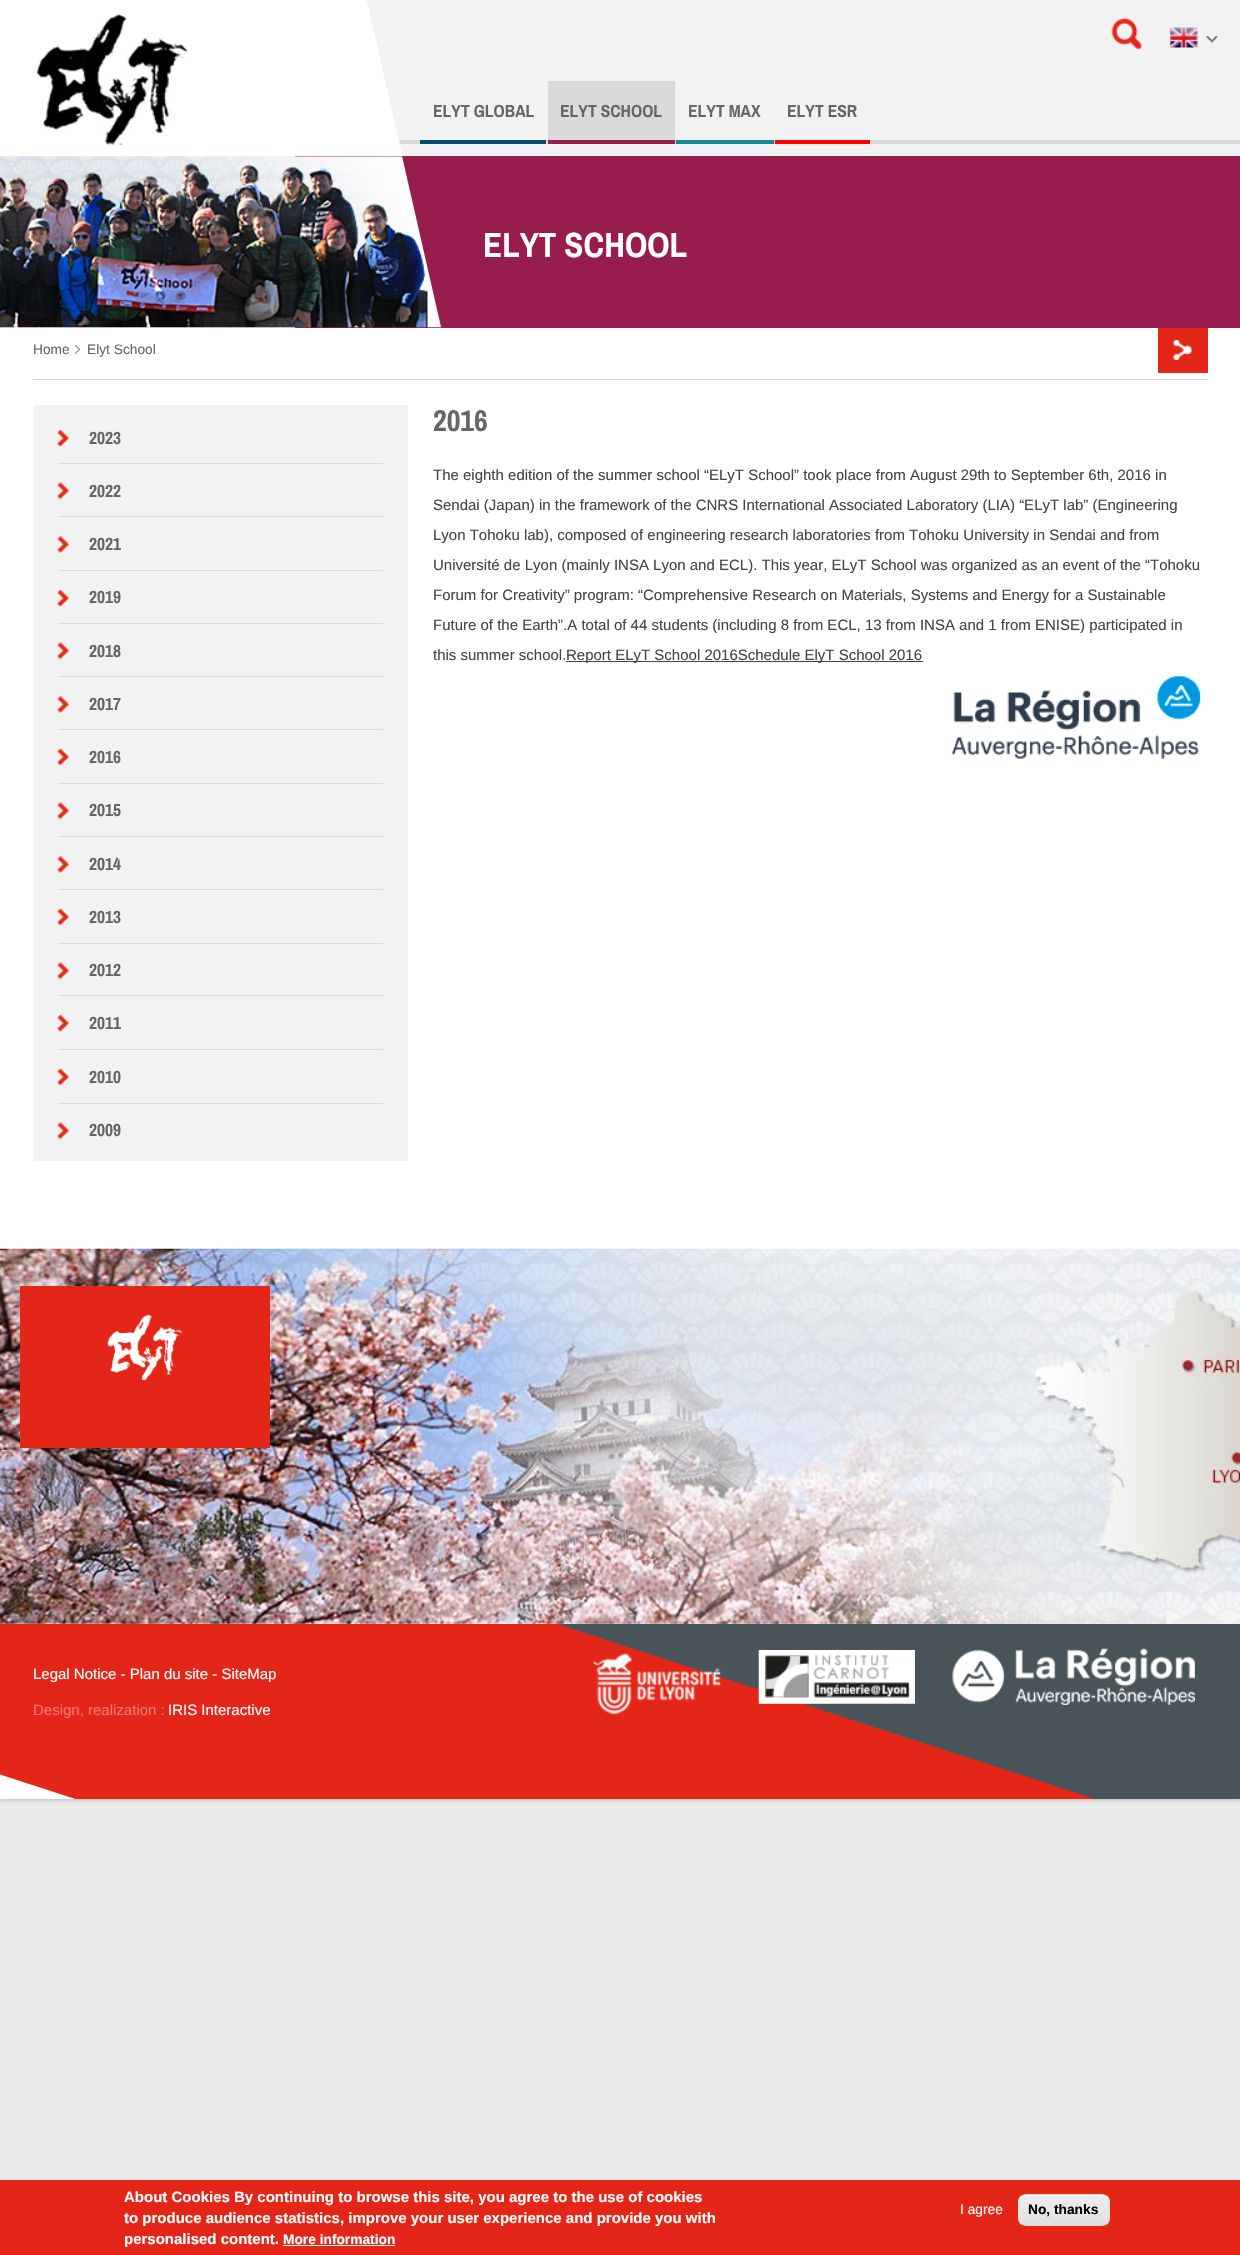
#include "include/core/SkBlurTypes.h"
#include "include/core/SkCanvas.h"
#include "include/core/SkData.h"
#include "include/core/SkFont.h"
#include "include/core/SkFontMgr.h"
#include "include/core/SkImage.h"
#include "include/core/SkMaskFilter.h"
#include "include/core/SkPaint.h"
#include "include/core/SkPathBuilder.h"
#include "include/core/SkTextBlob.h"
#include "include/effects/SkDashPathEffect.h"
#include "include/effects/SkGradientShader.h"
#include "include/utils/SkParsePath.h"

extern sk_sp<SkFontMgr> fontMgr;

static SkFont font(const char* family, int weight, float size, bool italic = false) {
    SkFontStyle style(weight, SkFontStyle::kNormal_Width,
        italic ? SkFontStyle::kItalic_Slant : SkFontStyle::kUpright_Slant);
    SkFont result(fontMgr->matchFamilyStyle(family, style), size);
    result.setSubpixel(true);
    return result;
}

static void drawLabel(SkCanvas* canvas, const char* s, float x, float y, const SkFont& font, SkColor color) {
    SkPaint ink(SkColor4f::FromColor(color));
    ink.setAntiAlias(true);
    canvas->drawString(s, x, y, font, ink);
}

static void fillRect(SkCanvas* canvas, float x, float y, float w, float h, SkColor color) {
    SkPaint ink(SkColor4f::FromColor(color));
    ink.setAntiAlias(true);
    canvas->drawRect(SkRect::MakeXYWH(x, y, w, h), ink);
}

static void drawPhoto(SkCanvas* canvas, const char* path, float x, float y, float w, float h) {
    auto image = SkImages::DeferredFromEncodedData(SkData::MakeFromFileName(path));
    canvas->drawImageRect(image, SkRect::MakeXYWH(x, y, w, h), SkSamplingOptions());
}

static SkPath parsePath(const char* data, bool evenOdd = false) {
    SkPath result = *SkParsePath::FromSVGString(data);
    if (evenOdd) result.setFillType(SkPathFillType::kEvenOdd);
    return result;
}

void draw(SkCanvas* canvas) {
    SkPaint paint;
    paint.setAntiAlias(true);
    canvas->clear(0xFFEBEBEB);
    paint.setColor(0x4D000000);
    paint.setMaskFilter(SkMaskFilter::MakeBlur(kNormal_SkBlurStyle, 2.5f));
    canvas->drawRect(SkRect::MakeXYWH(0, 0, 1240, 1799), paint);
    paint.setMaskFilter(nullptr);
    fillRect(canvas, 0, 328, 1240, 1296, 0xFFFFFFFF);
    fillRect(canvas, 0, 0, 1240, 328, 0xFFF2F2F2);
    fillRect(canvas, 0, 0, 20, 156, 0xFFFFFFFF);
    fillRect(canvas, 398, 140, 842, 4, 0xFFDADADA);
    canvas->save();
    canvas->clipRect(SkRect::MakeXYWH(0, 0, 420, 156));
    paint.setColor(0xFFFFFFFF);
    canvas->drawPath(parsePath("M267 15L365-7L435 297L338 320Z"), paint);
    canvas->restore();
    fillRect(canvas, 20, 0, 313, 156, 0xFFFFFFFF);
    drawPhoto(canvas, "assets/img1.png", 36, 13, 152, 133);
    drawPhoto(canvas, "assets/img2.png", 1111, 18, 31, 31);
    drawPhoto(canvas, "assets/img3.png", 1170, 27, 28, 21);
    drawPhoto(canvas, "assets/img4.png", 1206, 36, 12, 7);
    fillRect(canvas, 420, 140, 126, 4, 0xFF004F6E);
    SkFont font1 = font("Archivo Narrow", 700, 17.5f);
    drawLabel(canvas, "ELYT GLOBAL", 433, 117, font1, 0xFF666666);
    fillRect(canvas, 548, 81, 127, 59, 0xFFDADADA);
    fillRect(canvas, 548, 140, 127, 4, 0xFF961D4E);
    drawLabel(canvas, "ELYT SCHOOL", 560, 117, font1, 0xFF666666);
    fillRect(canvas, 676, 140, 98, 4, 0xFF178994);
    drawLabel(canvas, "ELYT MAX", 688, 117, font1, 0xFF666666);
    fillRect(canvas, 775, 140, 95, 4, 0xFFFF0000);
    drawLabel(canvas, "ELYT ESR", 787, 117, font1, 0xFF666666);
    fillRect(canvas, 295, 156, 945, 172, 0xFF961D4E);
    drawPhoto(canvas, "assets/img5.png", 0, 156, 442, 172);
    SkFont font2 = font("Archivo Narrow", 700, 35);
    drawLabel(canvas, "ELYT SCHOOL", 483, 257, font2, 0xFFFFFFFF);
    canvas->save();
    canvas->clipRect(SkRect::MakeXYWH(0, 156, 1240, 172));
    paint.setColor(0xFF961D4E);
    canvas->drawPath(parsePath("M402 156L451 145L498 350L449 362Z"), paint);
    canvas->restore();
    fillRect(canvas, 33, 379, 1175, 1, 0xFFDADADA);
    SkFont font3 = font("Liberation Sans", 400, 13.75f);
    drawLabel(canvas, "Home", 33, 354, font3, 0xFF666666);
    drawPhoto(canvas, "assets/img6.png", 75, 345, 5, 9);
    drawLabel(canvas, "Elyt School", 87, 354, font3, 0xFF666666);
    fillRect(canvas, 1158, 328, 50, 45, 0xFFE42618);
    drawPhoto(canvas, "assets/img7.png", 1172, 340, 21, 20);
    fillRect(canvas, 33, 405, 375, 756, 0xFFF2F2F2);
    drawPhoto(canvas, "assets/img8.png", 57, 430, 12, 17);
    fillRect(canvas, 58, 463, 325, 1, 0xFFDADADA);
    drawLabel(canvas, "2023", 89, 444, font1, 0xFF666666);
    drawPhoto(canvas, "assets/img9.png", 57, 482, 12, 17);
    fillRect(canvas, 58, 516, 325, 1, 0xFFDADADA);
    drawLabel(canvas, "2022", 89, 497, font1, 0xFF666666);
    drawPhoto(canvas, "assets/img10.png", 57, 536, 12, 17);
    fillRect(canvas, 58, 570, 325, 1, 0xFFDADADA);
    drawLabel(canvas, "2021", 89, 550, font1, 0xFF666666);
    drawPhoto(canvas, "assets/img8.png", 57, 590, 12, 17);
    fillRect(canvas, 58, 623, 325, 1, 0xFFDADADA);
    drawLabel(canvas, "2019", 89, 603, font1, 0xFF666666);
    drawPhoto(canvas, "assets/img9.png", 57, 642, 12, 17);
    fillRect(canvas, 58, 676, 325, 1, 0xFFDADADA);
    drawLabel(canvas, "2018", 89, 657, font1, 0xFF666666);
    drawPhoto(canvas, "assets/img10.png", 57, 696, 12, 17);
    fillRect(canvas, 58, 729, 325, 1, 0xFFDADADA);
    drawLabel(canvas, "2017", 89, 710, font1, 0xFF666666);
    drawPhoto(canvas, "assets/img11.png", 57, 748, 12, 17);
    fillRect(canvas, 58, 783, 325, 1, 0xFFDADADA);
    drawLabel(canvas, "2016", 89, 763, font1, 0xFF666666);
    drawPhoto(canvas, "assets/img9.png", 57, 802, 12, 17);
    fillRect(canvas, 58, 836, 325, 1, 0xFFDADADA);
    drawLabel(canvas, "2015", 89, 816, font1, 0xFF666666);
    drawPhoto(canvas, "assets/img10.png", 57, 856, 12, 17);
    fillRect(canvas, 58, 889, 325, 1, 0xFFDADADA);
    drawLabel(canvas, "2014", 89, 870, font1, 0xFF666666);
    drawPhoto(canvas, "assets/img11.png", 57, 908, 12, 17);
    fillRect(canvas, 58, 943, 325, 1, 0xFFDADADA);
    drawLabel(canvas, "2013", 89, 923, font1, 0xFF666666);
    drawPhoto(canvas, "assets/img9.png", 57, 962, 12, 17);
    fillRect(canvas, 58, 995, 325, 1, 0xFFDADADA);
    drawLabel(canvas, "2012", 89, 976, font1, 0xFF666666);
    drawPhoto(canvas, "assets/img8.png", 57, 1015, 12, 17);
    fillRect(canvas, 58, 1049, 325, 1, 0xFFDADADA);
    drawLabel(canvas, "2011", 89, 1029, font1, 0xFF666666);
    drawPhoto(canvas, "assets/img11.png", 57, 1068, 12, 17);
    fillRect(canvas, 58, 1103, 325, 1, 0xFFDADADA);
    drawLabel(canvas, "2010", 89, 1083, font1, 0xFF666666);
    drawPhoto(canvas, "assets/img9.png", 57, 1122, 12, 17);
    drawLabel(canvas, "2009", 89, 1136, font1, 0xFF666666);
    SkFont font4 = font("Archivo Narrow", 700, 30);
    drawLabel(canvas, "2016", 433, 431, font4, 0xFF666666);
    SkFont font5 = font("Liberation Sans", 400, 15);
    drawLabel(canvas, "The eighth edition of the summer school “ELyT School” took place from August 29th to September 6th, 2016 in", 433, 480, font5, 0xFF444444);
    drawLabel(canvas, "Sendai (Japan) in the framework of the CNRS International Associated Laboratory (LIA) “ELyT lab” (Engineering", 433, 510, font5, 0xFF444444);
    drawLabel(canvas, "Lyon Tohoku lab), composed of engineering research laboratories from Tohoku University in Sendai and from", 433, 540, font5, 0xFF444444);
    drawLabel(canvas, "Université de Lyon (mainly INSA Lyon and ECL). This year, ELyT School was organized as an event of the “Tohoku", 433, 570, font5, 0xFF444444);
    drawLabel(canvas, "Forum for Creativity” program: “Comprehensive Research on Materials, Systems and Energy for a Sustainable", 433, 600, font5, 0xFF444444);
    drawLabel(canvas, "Future of the Earth”.A total of 44 students (including 8 from ECL, 13 from INSA and 1 from ENISE) participated in", 433, 630, font5, 0xFF444444);
    drawLabel(canvas, "this summer school.", 433, 660, font5, 0xFF444444);
    fillRect(canvas, 566, 661, 357, 1, 0xFF444444);
    drawLabel(canvas, "Report ELyT School 2016Schedule ElyT School 2016", 566, 660, font5, 0xFF444444);
    drawPhoto(canvas, "assets/img12.png", 951, 676, 250, 83);
    drawPhoto(canvas, "assets/img13.png", 0, 1248, 1240, 376);
    fillRect(canvas, 20, 1286, 250, 162, 0xFFE42618);
    drawPhoto(canvas, "assets/img14.png", 107, 1314, 76, 67);
    fillRect(canvas, 557, 1624, 683, 175, 0xFF49545A);
    fillRect(canvas, 0, 1774, 76, 25, 0xFFFFFFFF);
    canvas->save();
    canvas->clipRect(SkRect::MakeXYWH(0, 1624, 1240, 175));
    paint.setColor(0xFFE42618);
    canvas->drawPath(parsePath("M-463 1624H557L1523 1938H503Z"), paint);
    canvas->restore();
    drawLabel(canvas, "Legal Notice - Plan du site - SiteMap", 33, 1679, font5, 0xFFFFFFFF);
    drawPhoto(canvas, "assets/img15.png", 593, 1653, 128, 62);
    drawPhoto(canvas, "assets/img16.png", 758, 1650, 157, 54);
    drawPhoto(canvas, "assets/img17.png", 952, 1648, 243, 57);
    drawLabel(canvas, "Design, realization :", 33, 1715, font5, 0xFFF07B72);
    drawLabel(canvas, "IRIS Interactive", 168, 1715, font5, 0xFFFFFFFF);
    fillRect(canvas, 0, 2180, 1240, 75, 0xFFE42618);
    SkFont font6 = font("Liberation Sans", 700, 15);
    drawLabel(canvas, "About Cookies", 124, 2202, font6, 0xFFFFFFFF);
    drawLabel(canvas, "By continuing to browse this site, you agree to the use of cookies", 234, 2202, font6, 0xFFFFFFFF);
    drawLabel(canvas, "to produce audience statistics, improve your user experience and provide you with", 124, 2223, font6, 0xFFFFFFFF);
    drawLabel(canvas, "personalised content.", 124, 2244, font6, 0xFFFFFFFF);
    SkFont font7 = font("Liberation Sans", 700, 13.75f);
    drawLabel(canvas, "More information", 283, 2244, font7, 0xFFFFFFFF);
    fillRect(canvas, 283, 2245, 112, 1, 0xFFFFFFFF);
    drawLabel(canvas, "I agree", 960, 2214, font3, 0xFFFFFFFF);
    canvas->save();
    canvas->clipPath(parsePath("M1026 2194H1102C1106.5 2194 1110 2197.5 1110 2202V2218C1110 2222.5 1106.5 2226 1102 2226H1026C1021.5 2226 1018 2222.5 1018 2218V2202C1018 2197.5 1021.5 2194 1026 2194Z"), true);
    {
        const SkColor colors[] = {0xFFEDEDED, 0xFFDFDFDF};
        const float stops[] = {0.05f, 1};
        const SkPoint ends[] = {{1064, 2195}, {1064, 2225}};
        paint.setShader(SkGradientShader::MakeLinear(ends, colors, stops, 2, SkTileMode::kClamp));
        paint.setAlpha(255);
    }
    canvas->drawRect(SkRect::MakeXYWH(1018, 2195, 92, 30), paint);
    canvas->restore();
    paint.setShader(nullptr);
    paint.setColor(0xFFFFFFFF);
    canvas->drawPath(parsePath("M1025 2196H1102C1106 2196 1109 2199 1109 2202C1109 2192 1097 2195 1090 2195H1038C1031 2195 1019 2192 1019 2202C1019 2199 1022 2196 1025 2196Z"), paint);
    paint.setStroke(true);
    paint.setStrokeWidth(1);
    paint.setColor(0xFFDCDCDC);
    canvas->drawRoundRect(SkRect::MakeXYWH(1018.5f, 2194.5f, 91, 31), 7.5f, 7.5f, paint);
    drawLabel(canvas, "No, thanks", 1028, 2214, font7, 0xFF000000);
}
